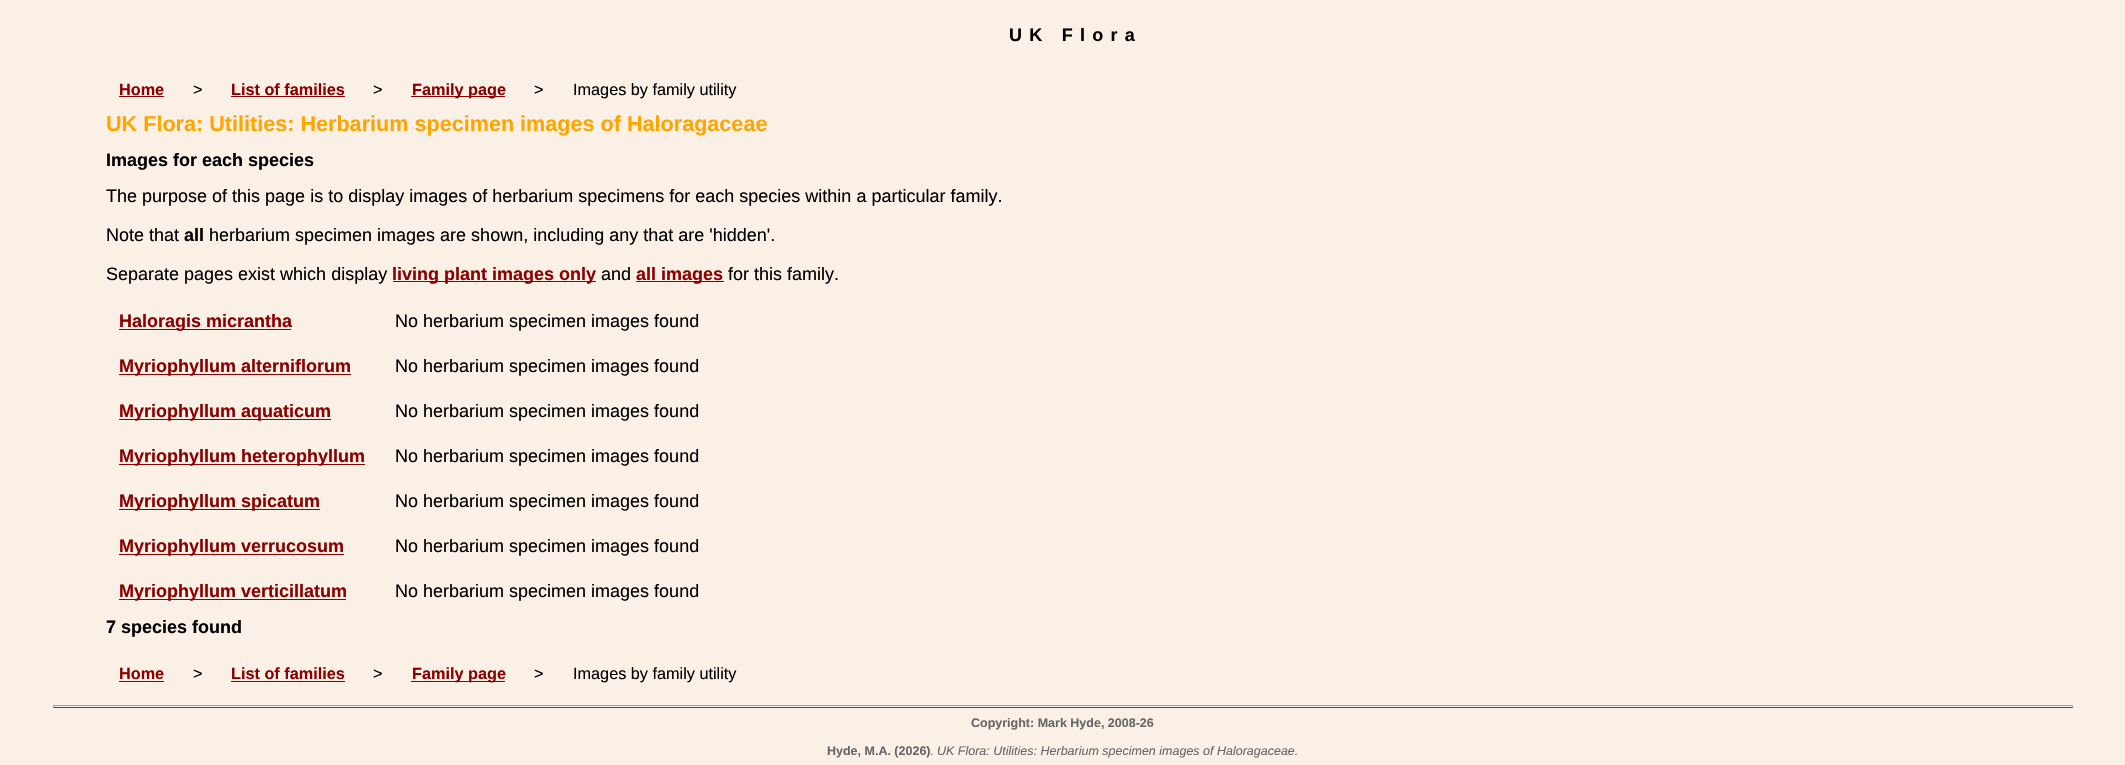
#include "include/core/SkBlurTypes.h"
#include "include/core/SkCanvas.h"
#include "include/core/SkData.h"
#include "include/core/SkFont.h"
#include "include/core/SkFontMgr.h"
#include "include/core/SkImage.h"
#include "include/core/SkMaskFilter.h"
#include "include/core/SkPaint.h"
#include "include/core/SkPathBuilder.h"
#include "include/core/SkTextBlob.h"
#include "include/effects/SkDashPathEffect.h"
#include "include/effects/SkGradientShader.h"
#include "include/utils/SkParsePath.h"

extern sk_sp<SkFontMgr> fontMgr;

static SkFont font(const char* family, int weight, float size, bool italic = false) {
    SkFontStyle style(weight, SkFontStyle::kNormal_Width,
        italic ? SkFontStyle::kItalic_Slant : SkFontStyle::kUpright_Slant);
    SkFont result(fontMgr->matchFamilyStyle(family, style), size);
    result.setSubpixel(true);
    return result;
}

static void drawLabel(SkCanvas* canvas, const char* s, float x, float y, const SkFont& font, SkColor color) {
    SkPaint ink(SkColor4f::FromColor(color));
    ink.setAntiAlias(true);
    canvas->drawString(s, x, y, font, ink);
}

static void drawTracked(SkCanvas* canvas, const char* s, float x, float y, const SkFont& font, const SkPaint& ink, float letter, float word) {
    std::vector<SkGlyphID> glyphs(font.countText(s, strlen(s), SkTextEncoding::kUTF8));
    std::vector<float> xs(glyphs.size());
    font.textToGlyphs(s, strlen(s), SkTextEncoding::kUTF8, glyphs);
    font.getXPos(glyphs, xs, x);
    float extra = 0;
    for (size_t i = 0; i < glyphs.size(); i++) {
        xs[i] += extra;
        extra += letter + word * (glyphs[i] == font.unicharToGlyph(' '));
    }
    canvas->drawTextBlob(SkTextBlob::MakeFromPosHGlyphs(glyphs, xs, y, font), 0, 0, ink);
}

static void fillRect(SkCanvas* canvas, float x, float y, float w, float h, SkColor color) {
    SkPaint ink(SkColor4f::FromColor(color));
    ink.setAntiAlias(true);
    canvas->drawRect(SkRect::MakeXYWH(x, y, w, h), ink);
}

void draw(SkCanvas* canvas) {
    SkPaint paint;
    paint.setAntiAlias(true);
    canvas->clear(0xFFFAF0E6);
    SkFont font1 = font("Liberation Sans", 700, 18);
    paint.setColor(0xFF000000);
    drawTracked(canvas, "UK Flora", 1009, 41, font1, paint, 7.25f, 0);
    SkFont font2 = font("Liberation Sans", 700, 16.25f);
    drawLabel(canvas, "Home", 119, 95, font2, 0xFF8B0000);
    fillRect(canvas, 119, 96, 45, 1, 0xFF8B0000);
    SkFont font3 = font("Liberation Sans", 400, 16.25f);
    drawLabel(canvas, ">", 193, 95, font3, 0xFF000000);
    drawLabel(canvas, "List of families", 231, 95, font2, 0xFF8B0000);
    fillRect(canvas, 231, 96, 114, 1, 0xFF8B0000);
    drawLabel(canvas, ">", 373, 95, font3, 0xFF000000);
    fillRect(canvas, 411, 96, 94, 1, 0xFF8B0000);
    drawLabel(canvas, "Family page", 412, 95, font2, 0xFF8B0000);
    drawLabel(canvas, ">", 534, 95, font3, 0xFF000000);
    drawLabel(canvas, "Images by family utility", 573, 95, font3, 0xFF000000);
    SkFont font4 = font("Liberation Sans", 700, 21.6f);
    drawLabel(canvas, "UK Flora: Utilities: Herbarium specimen images of Haloragaceae", 106, 131, font4, 0xFFFFA500);
    drawLabel(canvas, "Images for each species", 106, 166, font1, 0xFF000000);
    SkFont font5 = font("Liberation Sans", 400, 18);
    drawLabel(canvas, "The purpose of this page is to display images of herbarium specimens for each species within a particular family.", 106, 202, font5, 0xFF000000);
    drawLabel(canvas, "Note that", 106, 241, font5, 0xFF000000);
    drawLabel(canvas, "all", 184, 241, font1, 0xFF000000);
    drawLabel(canvas, "herbarium specimen images are shown, including any that are 'hidden'.", 209, 241, font5, 0xFF000000);
    drawLabel(canvas, "Separate pages exist which display", 106, 280, font5, 0xFF000000);
    fillRect(canvas, 393, 281, 203, 1, 0xFF8B0000);
    drawLabel(canvas, "living plant images only", 392, 280, font1, 0xFF8B0000);
    drawLabel(canvas, "and", 601, 280, font5, 0xFF000000);
    fillRect(canvas, 636, 281, 88, 1, 0xFF8B0000);
    drawLabel(canvas, "all images", 636, 280, font1, 0xFF8B0000);
    drawLabel(canvas, "for this family.", 728, 280, font5, 0xFF000000);
    fillRect(canvas, 119, 329, 172, 1, 0xFF8B0000);
    drawLabel(canvas, "Haloragis micrantha", 119, 327, font1, 0xFF8B0000);
    drawLabel(canvas, "No herbarium specimen images found", 395, 327, font5, 0xFF000000);
    fillRect(canvas, 119, 374, 232, 1, 0xFF8B0000);
    drawLabel(canvas, "Myriophyllum alterniflorum", 119, 372, font1, 0xFF8B0000);
    drawLabel(canvas, "No herbarium specimen images found", 395, 372, font5, 0xFF000000);
    fillRect(canvas, 119, 419, 212, 1, 0xFF8B0000);
    drawLabel(canvas, "Myriophyllum aquaticum", 119, 417, font1, 0xFF8B0000);
    drawLabel(canvas, "No herbarium specimen images found", 395, 417, font5, 0xFF000000);
    fillRect(canvas, 119, 464, 246, 1, 0xFF8B0000);
    drawLabel(canvas, "Myriophyllum heterophyllum", 119, 462, font1, 0xFF8B0000);
    drawLabel(canvas, "No herbarium specimen images found", 395, 462, font5, 0xFF000000);
    fillRect(canvas, 119, 509, 201, 1, 0xFF8B0000);
    drawLabel(canvas, "Myriophyllum spicatum", 119, 507, font1, 0xFF8B0000);
    drawLabel(canvas, "No herbarium specimen images found", 395, 507, font5, 0xFF000000);
    fillRect(canvas, 119, 554, 225, 1, 0xFF8B0000);
    drawLabel(canvas, "Myriophyllum verrucosum", 119, 552, font1, 0xFF8B0000);
    drawLabel(canvas, "No herbarium specimen images found", 395, 552, font5, 0xFF000000);
    fillRect(canvas, 119, 599, 227, 1, 0xFF8B0000);
    drawLabel(canvas, "Myriophyllum verticillatum", 119, 597, font1, 0xFF8B0000);
    drawLabel(canvas, "No herbarium specimen images found", 395, 597, font5, 0xFF000000);
    drawLabel(canvas, "7 species found", 106, 633, font1, 0xFF000000);
    drawLabel(canvas, "Home", 119, 679, font2, 0xFF8B0000);
    fillRect(canvas, 119, 681, 45, 1, 0xFF8B0000);
    drawLabel(canvas, ">", 193, 679, font3, 0xFF000000);
    drawLabel(canvas, "List of families", 231, 679, font2, 0xFF8B0000);
    fillRect(canvas, 231, 681, 114, 1, 0xFF8B0000);
    drawLabel(canvas, ">", 373, 679, font3, 0xFF000000);
    fillRect(canvas, 411, 681, 94, 1, 0xFF8B0000);
    drawLabel(canvas, "Family page", 412, 679, font2, 0xFF8B0000);
    drawLabel(canvas, ">", 534, 679, font3, 0xFF000000);
    drawLabel(canvas, "Images by family utility", 573, 679, font3, 0xFF000000);
    fillRect(canvas, 53, 707, 2021, 1, 0xFFFF0000);
    fillRect(canvas, 53, 705, 2021, 1, 0xFF9F9F9F);
    fillRect(canvas, 2073, 705, 1, 3, 0xFFEEEEEE);
    fillRect(canvas, 53, 706, 2021, 1, 0xFFEEEEEE);
    fillRect(canvas, 53, 705, 1, 3, 0xFF9F9F9F);
    SkFont font6 = font("Liberation Sans", 700, 12.5f);
    drawLabel(canvas, "Copyright: Mark Hyde, 2008-26", 971, 727, font6, 0xFF666666);
    drawLabel(canvas, "Hyde, M.A. (2026)", 827, 755, font6, 0xFF666666);
    SkFont font7 = font("Liberation Sans", 400, 12.5f);
    drawLabel(canvas, ".", 930, 755, font7, 0xFF666666);
    SkFont font8 = font("Liberation Sans", 400, 12.5f, true);
    drawLabel(canvas, "UK Flora: Utilities: Herbarium specimen images of Haloragaceae.", 937, 755, font8, 0xFF666666);
}
